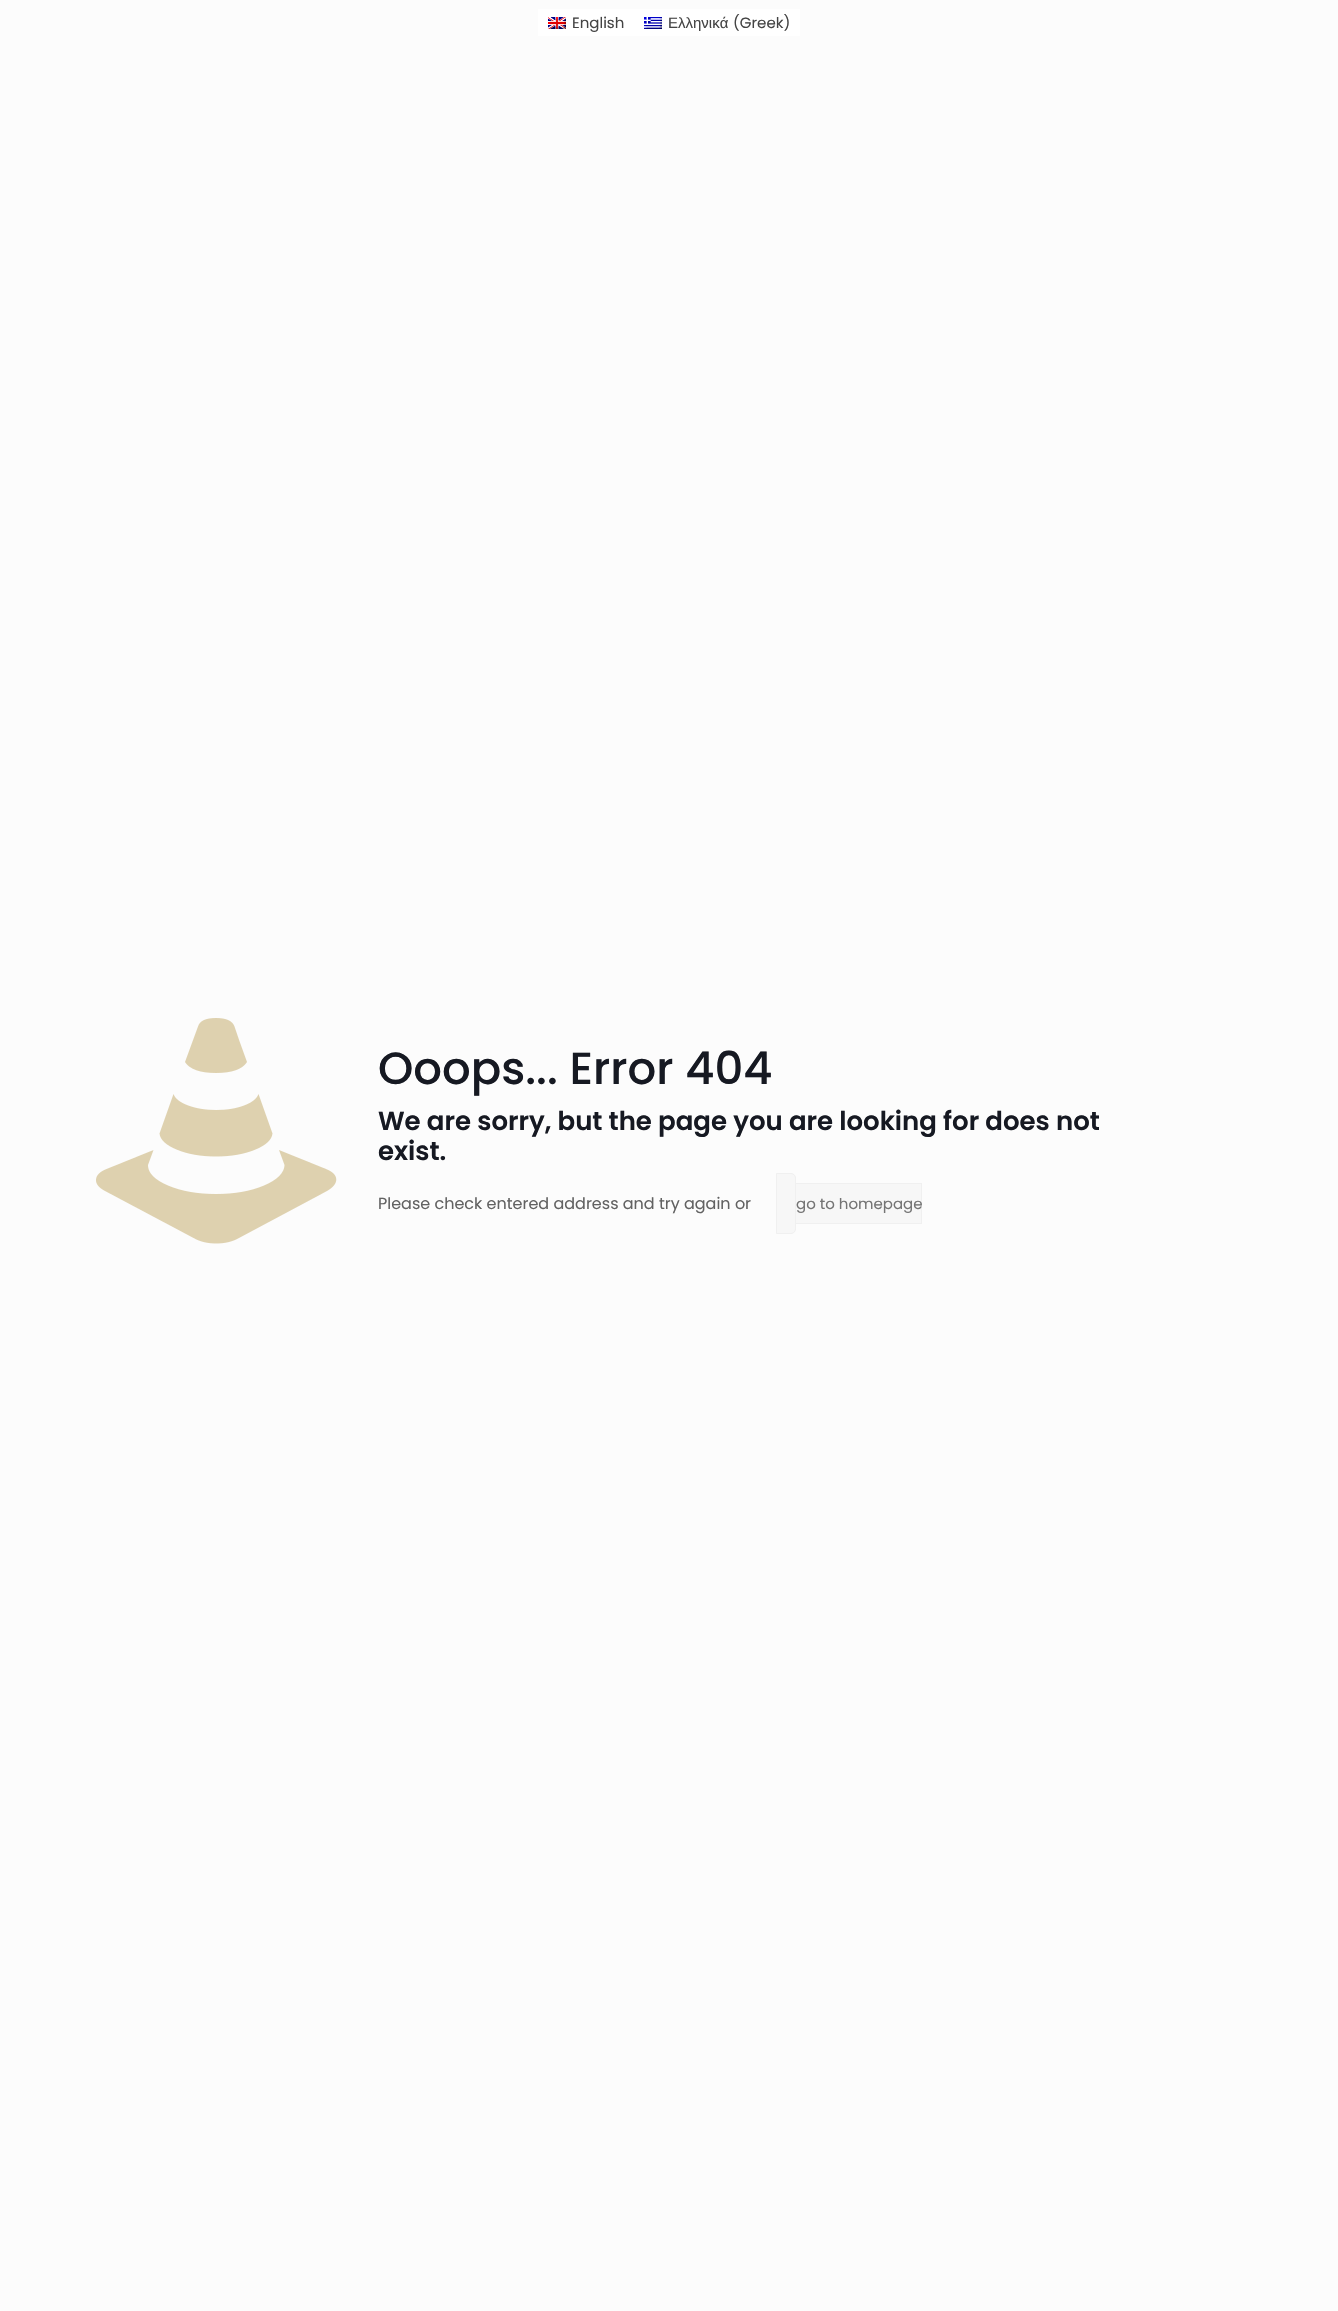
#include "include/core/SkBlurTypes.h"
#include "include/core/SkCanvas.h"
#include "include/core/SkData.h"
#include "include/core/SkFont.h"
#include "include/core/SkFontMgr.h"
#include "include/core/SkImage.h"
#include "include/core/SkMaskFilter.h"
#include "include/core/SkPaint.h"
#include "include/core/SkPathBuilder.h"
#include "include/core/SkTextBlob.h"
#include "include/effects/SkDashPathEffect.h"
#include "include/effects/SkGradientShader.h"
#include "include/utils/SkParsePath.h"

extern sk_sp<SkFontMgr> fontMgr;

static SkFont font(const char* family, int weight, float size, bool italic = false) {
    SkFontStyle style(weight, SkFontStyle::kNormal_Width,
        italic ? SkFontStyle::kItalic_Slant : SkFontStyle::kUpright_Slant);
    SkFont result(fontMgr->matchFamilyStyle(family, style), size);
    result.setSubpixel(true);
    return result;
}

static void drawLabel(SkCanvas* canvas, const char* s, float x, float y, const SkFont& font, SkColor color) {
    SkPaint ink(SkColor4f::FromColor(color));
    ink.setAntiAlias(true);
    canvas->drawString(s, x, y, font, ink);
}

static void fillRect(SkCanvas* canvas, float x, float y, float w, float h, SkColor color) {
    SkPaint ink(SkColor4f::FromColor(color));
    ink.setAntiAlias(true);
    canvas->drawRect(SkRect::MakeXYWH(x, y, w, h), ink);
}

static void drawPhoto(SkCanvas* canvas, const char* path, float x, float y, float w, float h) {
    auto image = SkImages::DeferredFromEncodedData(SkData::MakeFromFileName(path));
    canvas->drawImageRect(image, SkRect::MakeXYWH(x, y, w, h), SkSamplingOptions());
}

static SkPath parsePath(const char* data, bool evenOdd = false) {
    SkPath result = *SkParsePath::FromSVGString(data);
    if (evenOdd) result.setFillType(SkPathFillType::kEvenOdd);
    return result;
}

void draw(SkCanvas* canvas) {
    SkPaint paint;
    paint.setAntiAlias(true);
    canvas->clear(0xFFFCFCFC);
    fillRect(canvas, 538, 9, 262, 27, 0xFFFFFFFF);
    drawPhoto(canvas, "assets/img1.png", 548, 17, 18, 12);
    SkFont font1 = font("Poppins", 400, 15);
    drawLabel(canvas, "English", 572, 28, font1, 0xFF444444);
    drawPhoto(canvas, "assets/img2.png", 644, 17, 18, 12);
    SkFont font2 = font("Liberation Sans", 400, 15);
    drawLabel(canvas, "Ελληνικά", 668, 28, font2, 0xFF444444);
    drawLabel(canvas, "(Greek)", 733, 28, font1, 0xFF444444);
    drawPhoto(canvas, "assets/img3.png", 96, 1018, 241, 226);
    SkFont font3 = font("Poppins", 500, 45);
    drawLabel(canvas, "Ooops... Error 404", 378, 1084, font3, 0xFF161922);
    SkFont font4 = font("Poppins", 600, 26);
    drawLabel(canvas, "We are sorry, but the page you are looking for does not", 378, 1130, font4, 0xFF161922);
    drawLabel(canvas, "exist.", 378, 1160, font4, 0xFF161922);
    SkFont font5 = font("Poppins", 400, 16);
    drawLabel(canvas, "Please check entered address and try again or", 378, 1209, font5, 0xFF626262);
    fillRect(canvas, 796, 1184, 125, 39, 0xFFF7F7F7);
    paint.setStroke(true);
    paint.setStrokeWidth(1);
    paint.setColor(0xFFF0F0F0);
    canvas->drawRect(SkRect::MakeXYWH(776.5f, 1183.5f, 145, 40), paint);
    drawLabel(canvas, "go to homepage", 796, 1209, font1, 0xFF747474);
    paint.setStroke(false);
    paint.setColor(0xFFF7F7F7);
    canvas->drawPath(parsePath("M776.5 1173.5H791C793.5 1173.5 795.5 1175.5 795.5 1178V1229C795.5 1231.5 793.5 1233.5 791 1233.5H776.5Z"), paint);
    paint.setStroke(true);
    paint.setColor(0xFFF0F0F0);
    canvas->drawPath(parsePath("M776.5 1173.5H791C793.5 1173.5 795.5 1175.5 795.5 1178V1229C795.5 1231.5 793.5 1233.5 791 1233.5H776.5Z"), paint);
}
